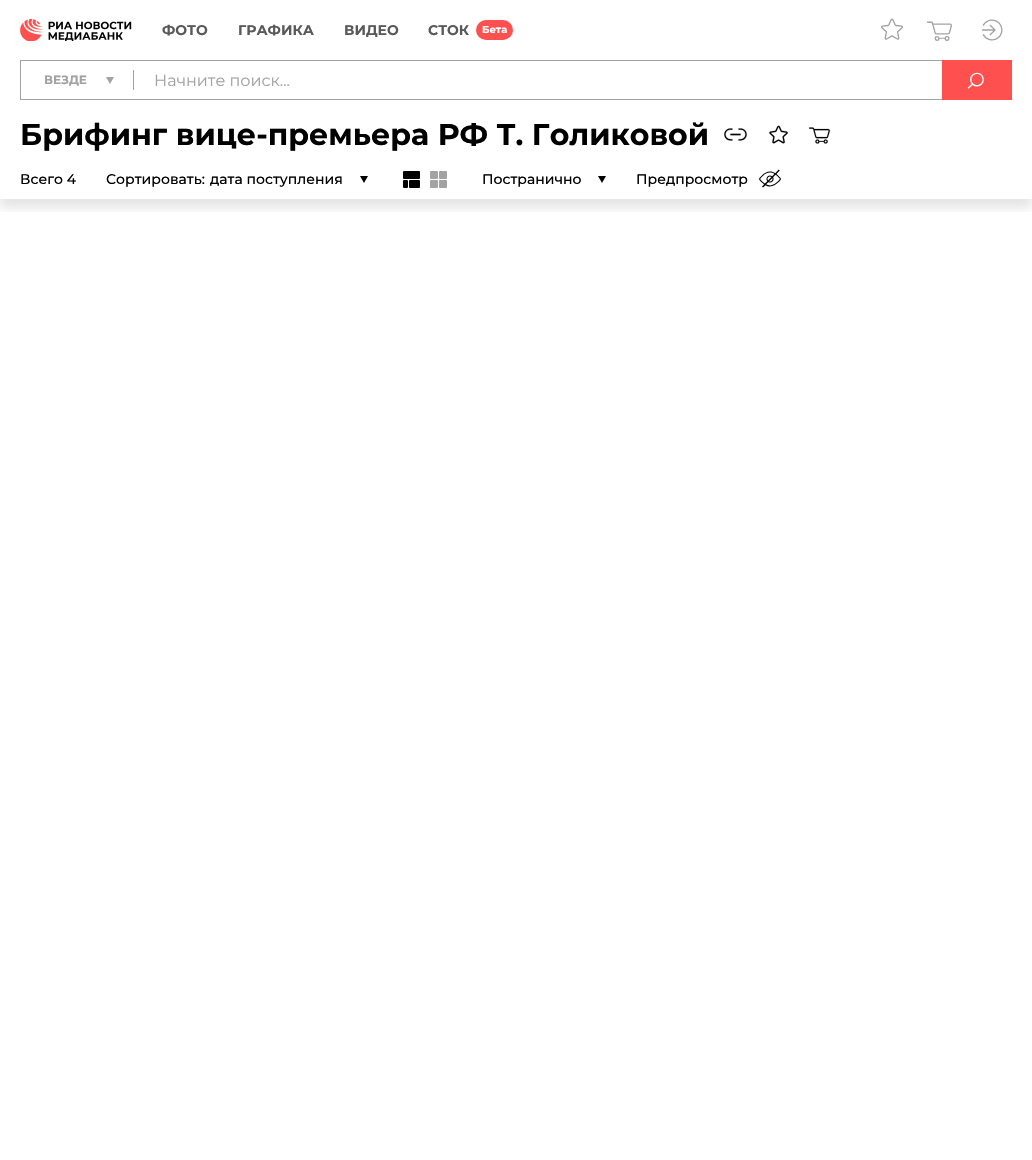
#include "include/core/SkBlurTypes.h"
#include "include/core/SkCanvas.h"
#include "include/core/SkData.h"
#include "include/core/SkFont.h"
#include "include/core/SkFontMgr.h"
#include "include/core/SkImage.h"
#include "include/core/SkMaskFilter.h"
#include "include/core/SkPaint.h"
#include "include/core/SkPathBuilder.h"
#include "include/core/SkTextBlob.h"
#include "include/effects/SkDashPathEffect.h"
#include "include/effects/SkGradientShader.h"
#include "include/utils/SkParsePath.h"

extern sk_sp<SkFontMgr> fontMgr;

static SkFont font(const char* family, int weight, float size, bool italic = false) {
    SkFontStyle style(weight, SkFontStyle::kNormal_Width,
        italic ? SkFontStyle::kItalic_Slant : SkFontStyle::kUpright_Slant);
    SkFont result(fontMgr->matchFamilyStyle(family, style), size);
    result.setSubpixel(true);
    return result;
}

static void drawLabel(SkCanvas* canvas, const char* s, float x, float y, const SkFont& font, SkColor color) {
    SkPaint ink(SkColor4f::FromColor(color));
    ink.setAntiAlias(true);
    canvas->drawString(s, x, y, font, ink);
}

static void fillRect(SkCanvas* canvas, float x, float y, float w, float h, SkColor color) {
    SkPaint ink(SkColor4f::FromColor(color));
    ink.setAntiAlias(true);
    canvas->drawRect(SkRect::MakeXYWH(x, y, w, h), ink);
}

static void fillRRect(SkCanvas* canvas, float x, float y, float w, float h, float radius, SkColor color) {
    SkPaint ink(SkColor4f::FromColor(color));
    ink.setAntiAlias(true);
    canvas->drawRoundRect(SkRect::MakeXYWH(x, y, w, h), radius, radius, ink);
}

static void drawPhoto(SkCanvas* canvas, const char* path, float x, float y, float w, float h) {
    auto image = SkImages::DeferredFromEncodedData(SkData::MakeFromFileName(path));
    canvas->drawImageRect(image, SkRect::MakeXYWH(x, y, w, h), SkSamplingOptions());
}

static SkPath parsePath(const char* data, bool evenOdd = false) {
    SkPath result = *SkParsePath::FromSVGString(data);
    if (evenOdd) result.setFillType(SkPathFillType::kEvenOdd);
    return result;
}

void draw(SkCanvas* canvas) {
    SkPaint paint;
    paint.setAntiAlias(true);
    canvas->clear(0xFFFFFFFF);
    canvas->save();
    canvas->clipRect(SkRect::MakeXYWH(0, 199, 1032, 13));
    paint.setColor(0x1A000000);
    paint.setMaskFilter(SkMaskFilter::MakeBlur(kNormal_SkBlurStyle, 5));
    canvas->drawRect(SkRect::MakeXYWH(0, 9, 1032, 199), paint);
    paint.setMaskFilter(nullptr);
    canvas->restore();
    drawPhoto(canvas, "assets/img1.png", 20, 19, 112, 22);
    SkFont font1 = font("Montserrat", 700, 14);
    drawLabel(canvas, "ФОТО", 162, 35, font1, 0xFF595959);
    drawLabel(canvas, "ГРАФИКА", 238, 35, font1, 0xFF595959);
    drawLabel(canvas, "ВИДЕО", 344, 35, font1, 0xFF595959);
    drawLabel(canvas, "СТОК", 428, 35, font1, 0xFF595959);
    fillRRect(canvas, 476, 20, 37, 20, 10, 0xFFFF5050);
    SkFont font2 = font("Montserrat", 700, 10);
    drawLabel(canvas, "Бета", 482, 33, font2, 0xFFFFFFFF);
    drawPhoto(canvas, "assets/img2.png", 881, 18, 22, 22);
    drawPhoto(canvas, "assets/img3.png", 927, 21, 25, 20);
    drawPhoto(canvas, "assets/img4.png", 982, 19, 21, 22);
    fillRect(canvas, 20, 60, 922, 1, 0xFFA3A2A2);
    fillRect(canvas, 20, 99, 922, 1, 0xFFA3A2A2);
    fillRect(canvas, 20, 60, 1, 40, 0xFFA3A2A2);
    SkFont font3 = font("Montserrat", 700, 12);
    drawLabel(canvas, "ВЕЗДЕ", 44, 84, font3, 0xFFA3A2A2);
    paint.setColor(0xFFA3A2A2);
    canvas->drawPath(parsePath("M106 77H114L110 84Z"), paint);
    fillRect(canvas, 133, 70, 1, 20, 0xFFA3A2A2);
    SkFont font4 = font("Montserrat", 400, 16);
    drawLabel(canvas, "Начните поиск...", 154, 86, font4, 0xFFA3A2A2);
    fillRect(canvas, 942, 60, 70, 40, 0xFFFF5050);
    drawPhoto(canvas, "assets/img5.png", 967, 72, 17, 17);
    SkFont font5 = font("Montserrat", 700, 30);
    drawLabel(canvas, "Брифинг вице-премьера РФ Т. Голиковой", 20, 145, font5, 0xFF000000);
    drawPhoto(canvas, "assets/img6.png", 723, 128, 25, 13);
    drawPhoto(canvas, "assets/img7.png", 768, 125, 21, 19);
    drawPhoto(canvas, "assets/img8.png", 808, 127, 23, 17);
    SkFont font6 = font("Montserrat", 500, 14);
    drawLabel(canvas, "Всего 4", 20, 184, font6, 0xFF000000);
    drawLabel(canvas, "Сортировать:", 106, 184, font6, 0xFF000000);
    drawLabel(canvas, "дата поступления", 210, 184, font6, 0xFF000000);
    paint.setColor(0xFF000000);
    canvas->drawPath(parsePath("M360 176H368L364 183Z"), paint);
    drawPhoto(canvas, "assets/img9.png", 403, 171, 17, 17);
    drawPhoto(canvas, "assets/img10.png", 430, 171, 17, 17);
    drawLabel(canvas, "Постранично", 482, 184, font6, 0xFF000000);
    canvas->drawPath(parsePath("M598 176H606L602 183Z"), paint);
    drawLabel(canvas, "Предпросмотр", 636, 184, font6, 0xFF000000);
    drawPhoto(canvas, "assets/img11.png", 758, 169, 24, 19);
}
